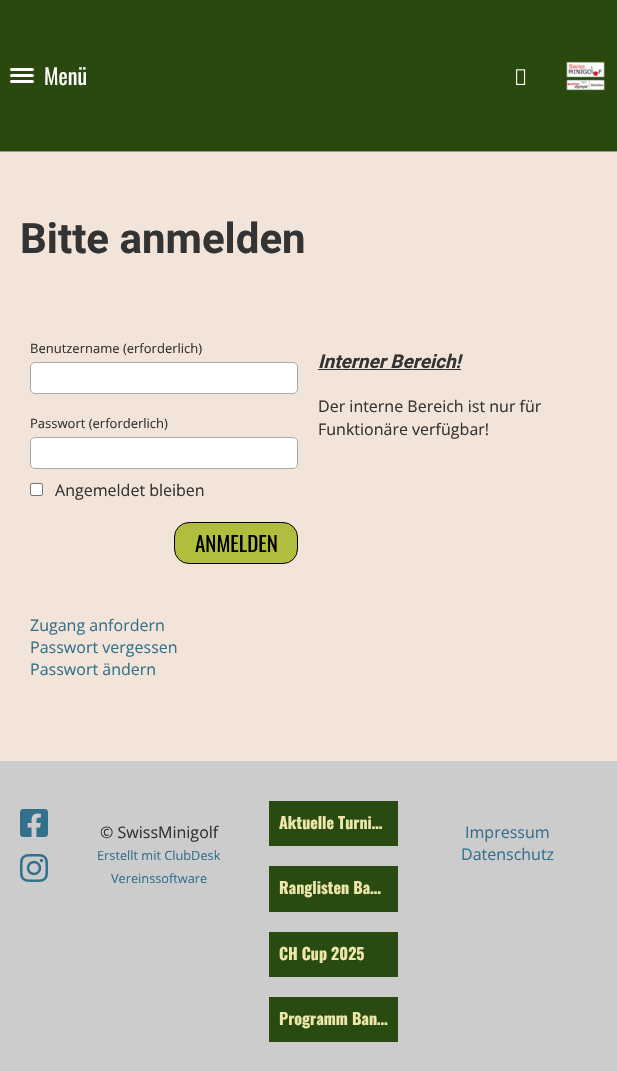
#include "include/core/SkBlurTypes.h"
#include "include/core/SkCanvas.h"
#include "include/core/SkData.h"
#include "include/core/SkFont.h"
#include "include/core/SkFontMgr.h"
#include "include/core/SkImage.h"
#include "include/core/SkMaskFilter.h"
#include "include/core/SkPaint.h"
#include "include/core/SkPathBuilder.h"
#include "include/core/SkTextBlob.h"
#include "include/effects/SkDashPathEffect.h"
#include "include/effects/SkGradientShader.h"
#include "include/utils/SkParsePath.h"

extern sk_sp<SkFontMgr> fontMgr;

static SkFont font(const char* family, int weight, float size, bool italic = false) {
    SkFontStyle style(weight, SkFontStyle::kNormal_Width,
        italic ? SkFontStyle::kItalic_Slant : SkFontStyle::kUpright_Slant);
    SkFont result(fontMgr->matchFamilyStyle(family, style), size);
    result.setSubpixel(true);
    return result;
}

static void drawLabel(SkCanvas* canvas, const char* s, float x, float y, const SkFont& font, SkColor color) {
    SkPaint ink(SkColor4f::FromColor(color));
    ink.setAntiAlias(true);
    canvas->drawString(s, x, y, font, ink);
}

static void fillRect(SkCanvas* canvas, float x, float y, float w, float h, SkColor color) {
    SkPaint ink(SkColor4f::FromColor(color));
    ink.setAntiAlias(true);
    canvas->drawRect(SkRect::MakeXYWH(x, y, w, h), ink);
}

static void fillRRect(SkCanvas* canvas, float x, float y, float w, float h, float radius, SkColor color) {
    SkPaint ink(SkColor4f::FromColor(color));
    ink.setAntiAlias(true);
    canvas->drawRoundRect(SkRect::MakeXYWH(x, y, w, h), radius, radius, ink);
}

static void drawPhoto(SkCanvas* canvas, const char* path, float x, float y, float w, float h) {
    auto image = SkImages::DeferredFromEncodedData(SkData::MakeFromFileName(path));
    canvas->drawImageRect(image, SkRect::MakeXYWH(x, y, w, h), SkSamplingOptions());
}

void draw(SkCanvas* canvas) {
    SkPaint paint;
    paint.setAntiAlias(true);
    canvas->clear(0xFFF2E4D8);
    fillRect(canvas, 0, 0, 617, 151, 0xFF2A490F);
    fillRect(canvas, 0, 151, 617, 1, 0xFF999999);
    fillRRect(canvas, 10, 68, 24, 3, 1.5f, 0xFFFFFFFF);
    fillRRect(canvas, 10, 74, 24, 3, 1.5f, 0xFFFFFFFF);
    fillRRect(canvas, 10, 80, 24, 3, 1.5f, 0xFFFFFFFF);
    SkFont font1 = font("Oswald", 400, 22);
    drawLabel(canvas, "Menü", 44, 85, font1, 0xFFFFFFFF);
    drawPhoto(canvas, "assets/img1.png", 516, 69, 10, 16);
    drawPhoto(canvas, "assets/img2.png", 566, 61, 39, 30);
    SkFont font2 = font("Roboto", 700, 42);
    drawLabel(canvas, "Bitte anmelden", 20, 253, font2, 0xFF333333);
    SkFont font3 = font("Open Sans", 400, 13);
    drawLabel(canvas, "Benutzername (erforderlich)", 30, 353, font3, 0xFF333333);
    paint.setColor(0xFFFFFFFF);
    canvas->drawRoundRect(SkRect::MakeXYWH(30.5f, 362.5f, 267, 31), 4.5f, 4.5f, paint);
    paint.setStroke(true);
    paint.setStrokeWidth(1);
    paint.setColor(0xFFAAAAAA);
    canvas->drawRoundRect(SkRect::MakeXYWH(30.5f, 362.5f, 267, 31), 4.5f, 4.5f, paint);
    drawLabel(canvas, "Passwort (erforderlich)", 30, 428, font3, 0xFF333333);
    paint.setStroke(false);
    paint.setColor(0xFFFFFFFF);
    canvas->drawRoundRect(SkRect::MakeXYWH(30.5f, 437.5f, 267, 31), 4.5f, 4.5f, paint);
    paint.setStroke(true);
    paint.setColor(0xFFAAAAAA);
    canvas->drawRoundRect(SkRect::MakeXYWH(30.5f, 437.5f, 267, 31), 4.5f, 4.5f, paint);
    paint.setStroke(false);
    paint.setColor(0xFFFFFFFF);
    canvas->drawRoundRect(SkRect::MakeXYWH(30.5f, 483.5f, 12, 12), 1.5f, 1.5f, paint);
    paint.setStroke(true);
    paint.setColor(0xFF767676);
    canvas->drawRoundRect(SkRect::MakeXYWH(30.5f, 483.5f, 12, 12), 1.5f, 1.5f, paint);
    SkFont font4 = font("Open Sans", 400, 16);
    drawLabel(canvas, "Angemeldet bleiben", 55, 496, font4, 0xFF333333);
    paint.setStroke(false);
    paint.setColor(0xFFB0BD3F);
    canvas->drawRoundRect(SkRect::MakeXYWH(174.5f, 522.5f, 123, 41), 14.5f, 14.5f, paint);
    paint.setStroke(true);
    paint.setColor(0xFF000000);
    canvas->drawRoundRect(SkRect::MakeXYWH(174.5f, 522.5f, 123, 41), 14.5f, 14.5f, paint);
    SkFont font5 = font("Oswald", 400, 21);
    drawLabel(canvas, "ANMELDEN", 195, 552, font5, 0xFF000000);
    drawLabel(canvas, "Zugang anfordern", 30, 631, font4, 0xFF33708C);
    drawLabel(canvas, "Passwort vergessen", 30, 653, font4, 0xFF33708C);
    drawLabel(canvas, "Passwort ändern", 30, 675, font4, 0xFF33708C);
    SkFont font6 = font("Roboto", 700, 19, true);
    drawLabel(canvas, "Interner Bereich!", 318, 368, font6, 0xFF333333);
    fillRect(canvas, 318, 369, 143, 1, 0xFF333333);
    drawLabel(canvas, "Der interne Bereich ist nur für", 318, 412, font4, 0xFF333333);
    drawLabel(canvas, "Funktionäre verfügbar!", 318, 435, font4, 0xFF333333);
    fillRect(canvas, 0, 761, 617, 310, 0xFFCCCCCC);
    drawPhoto(canvas, "assets/img3.png", 20, 809, 28, 28);
    drawPhoto(canvas, "assets/img4.png", 20, 854, 28, 28);
    drawLabel(canvas, "© SwissMinigolf", 100, 838, font4, 0xFF333333);
    SkFont font7 = font("Open Sans", 400, 12.75f);
    drawLabel(canvas, "Erstellt mit ClubDesk", 97, 860, font7, 0xFF33708C);
    drawLabel(canvas, "Vereinssoftware", 111, 883, font7, 0xFF33708C);
    fillRect(canvas, 269, 801, 129, 45, 0xFF294A10);
    SkFont font8 = font("Oswald", 700, 16);
    drawLabel(canvas, "Aktuelle Turni…", 279, 829, font8, 0xFFEEE7AA);
    fillRect(canvas, 269, 866, 129, 46, 0xFF294A10);
    drawLabel(canvas, "Ranglisten Ba…", 279, 894, font8, 0xFFEEE7AA);
    fillRect(canvas, 269, 932, 129, 45, 0xFF294A10);
    drawLabel(canvas, "CH Cup 2025", 279, 960, font8, 0xFFEEE7AA);
    fillRect(canvas, 269, 997, 129, 45, 0xFF294A10);
    drawLabel(canvas, "Programm Ban…", 279, 1025, font8, 0xFFEEE7AA);
    drawLabel(canvas, "Impressum", 465, 838, font4, 0xFF33708C);
    drawLabel(canvas, "Datenschutz", 461, 860, font4, 0xFF33708C);
}
